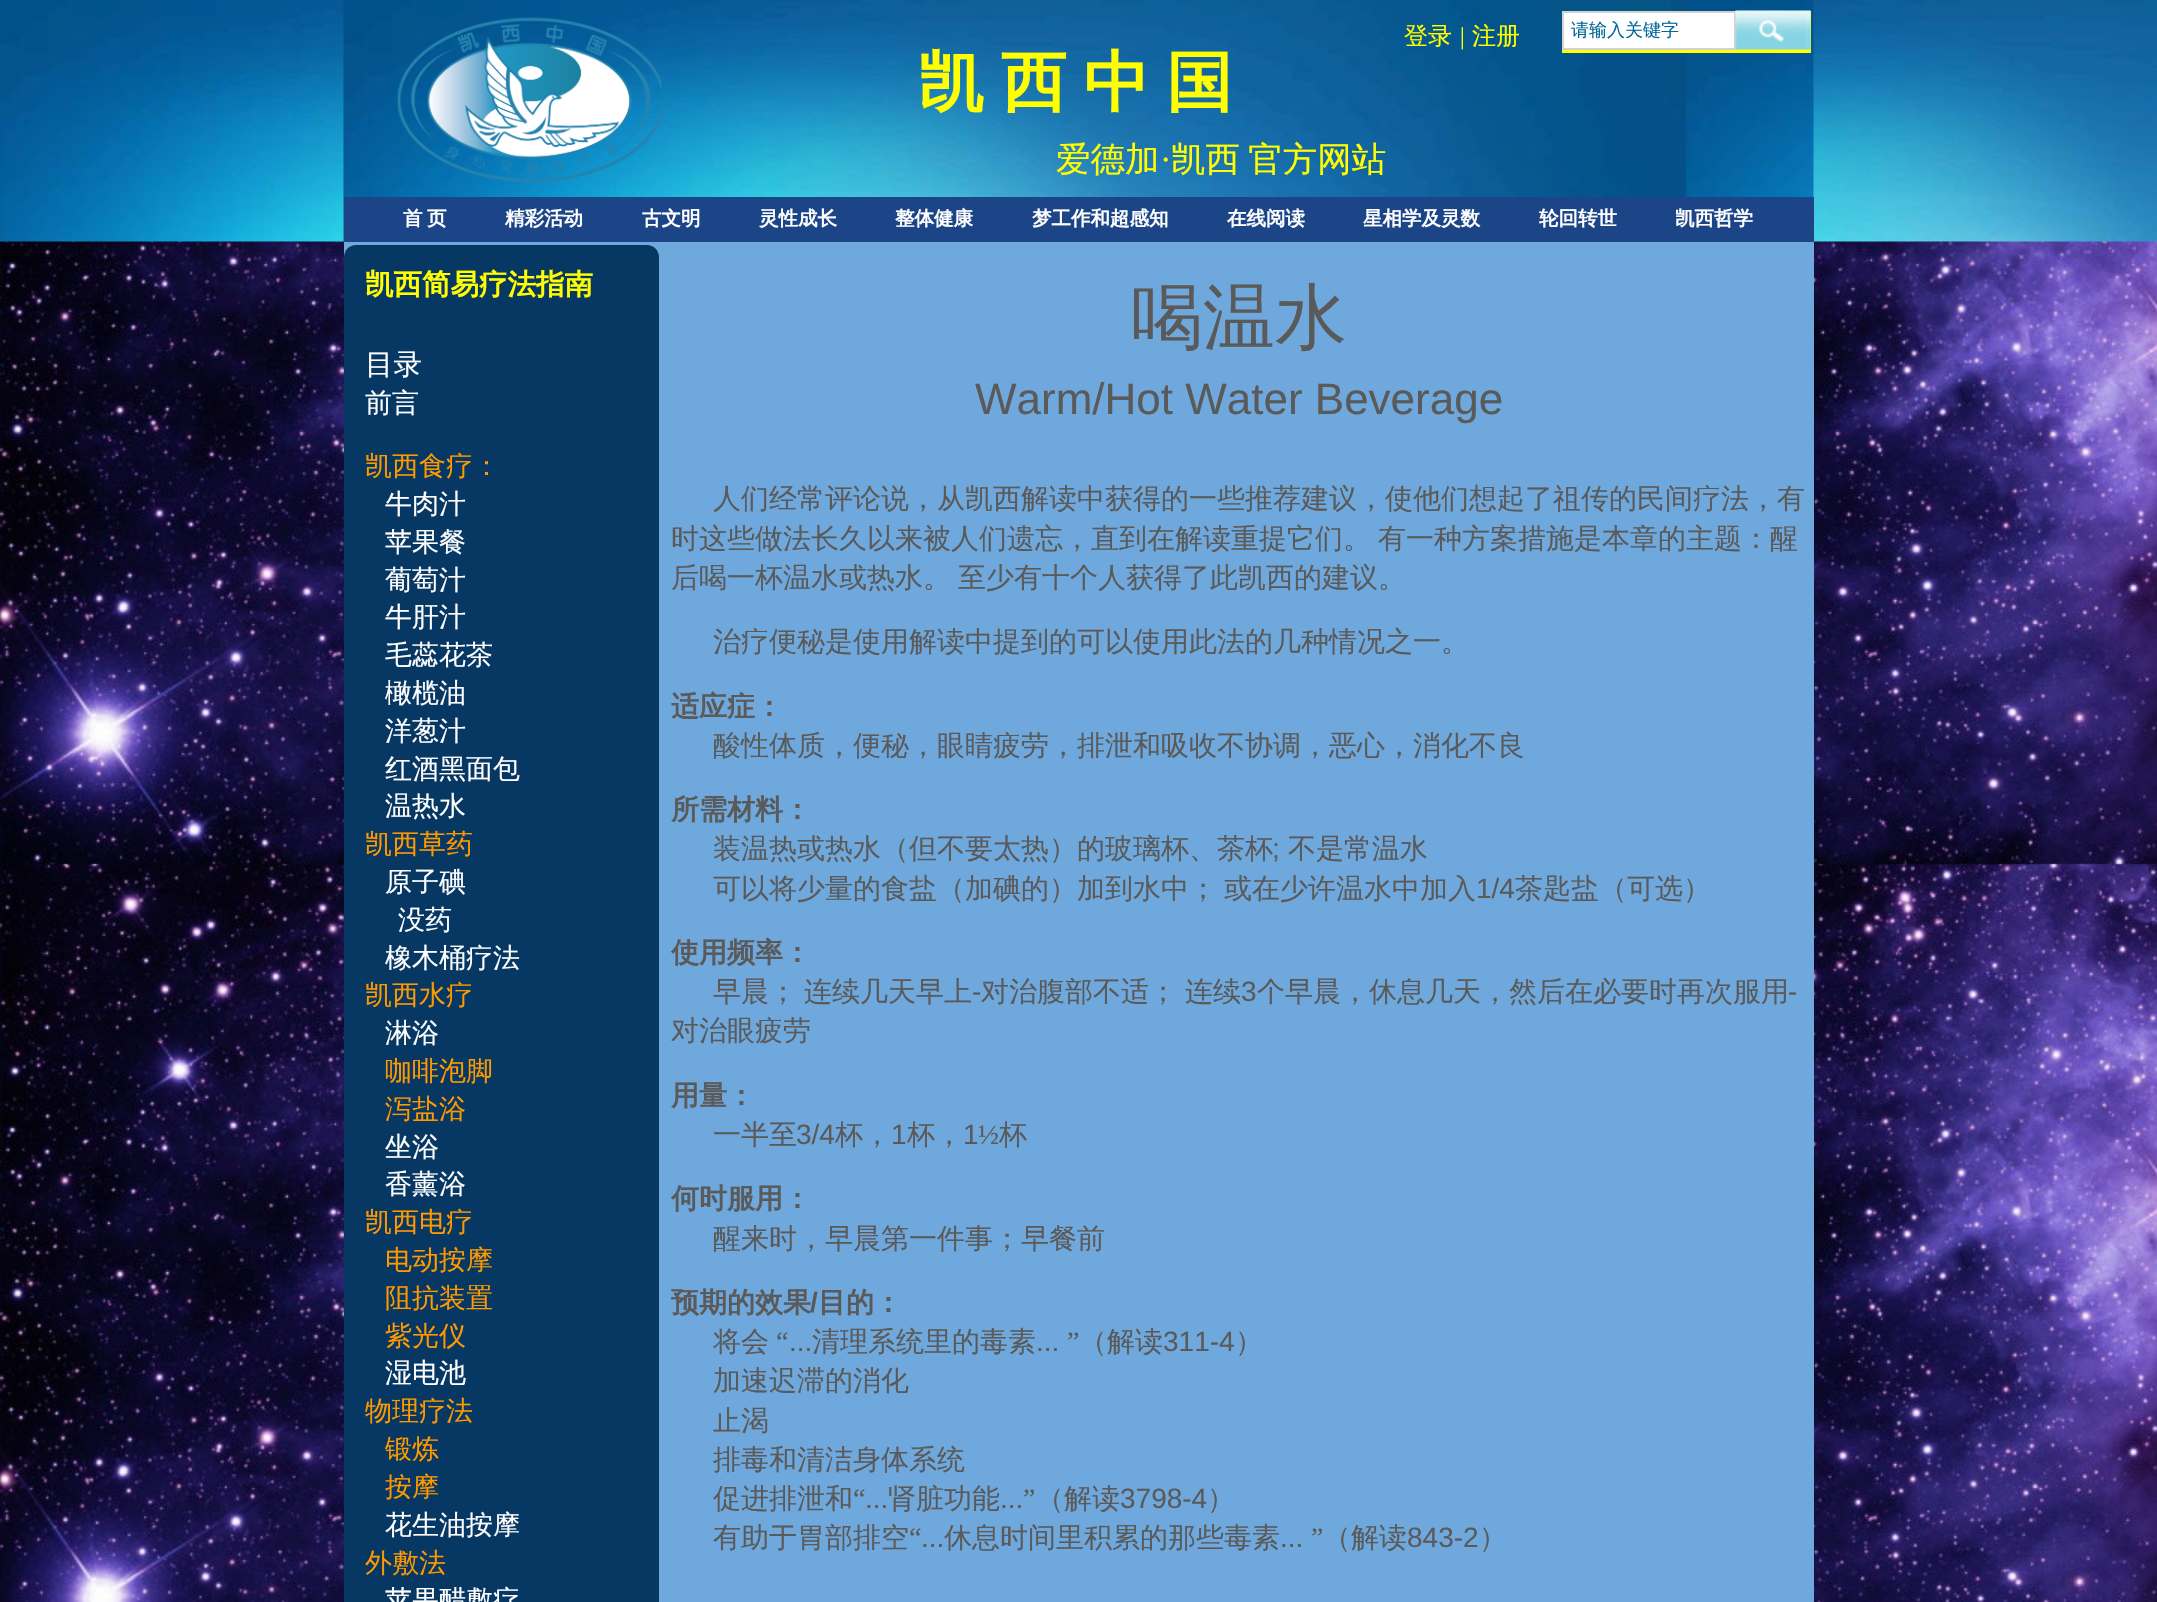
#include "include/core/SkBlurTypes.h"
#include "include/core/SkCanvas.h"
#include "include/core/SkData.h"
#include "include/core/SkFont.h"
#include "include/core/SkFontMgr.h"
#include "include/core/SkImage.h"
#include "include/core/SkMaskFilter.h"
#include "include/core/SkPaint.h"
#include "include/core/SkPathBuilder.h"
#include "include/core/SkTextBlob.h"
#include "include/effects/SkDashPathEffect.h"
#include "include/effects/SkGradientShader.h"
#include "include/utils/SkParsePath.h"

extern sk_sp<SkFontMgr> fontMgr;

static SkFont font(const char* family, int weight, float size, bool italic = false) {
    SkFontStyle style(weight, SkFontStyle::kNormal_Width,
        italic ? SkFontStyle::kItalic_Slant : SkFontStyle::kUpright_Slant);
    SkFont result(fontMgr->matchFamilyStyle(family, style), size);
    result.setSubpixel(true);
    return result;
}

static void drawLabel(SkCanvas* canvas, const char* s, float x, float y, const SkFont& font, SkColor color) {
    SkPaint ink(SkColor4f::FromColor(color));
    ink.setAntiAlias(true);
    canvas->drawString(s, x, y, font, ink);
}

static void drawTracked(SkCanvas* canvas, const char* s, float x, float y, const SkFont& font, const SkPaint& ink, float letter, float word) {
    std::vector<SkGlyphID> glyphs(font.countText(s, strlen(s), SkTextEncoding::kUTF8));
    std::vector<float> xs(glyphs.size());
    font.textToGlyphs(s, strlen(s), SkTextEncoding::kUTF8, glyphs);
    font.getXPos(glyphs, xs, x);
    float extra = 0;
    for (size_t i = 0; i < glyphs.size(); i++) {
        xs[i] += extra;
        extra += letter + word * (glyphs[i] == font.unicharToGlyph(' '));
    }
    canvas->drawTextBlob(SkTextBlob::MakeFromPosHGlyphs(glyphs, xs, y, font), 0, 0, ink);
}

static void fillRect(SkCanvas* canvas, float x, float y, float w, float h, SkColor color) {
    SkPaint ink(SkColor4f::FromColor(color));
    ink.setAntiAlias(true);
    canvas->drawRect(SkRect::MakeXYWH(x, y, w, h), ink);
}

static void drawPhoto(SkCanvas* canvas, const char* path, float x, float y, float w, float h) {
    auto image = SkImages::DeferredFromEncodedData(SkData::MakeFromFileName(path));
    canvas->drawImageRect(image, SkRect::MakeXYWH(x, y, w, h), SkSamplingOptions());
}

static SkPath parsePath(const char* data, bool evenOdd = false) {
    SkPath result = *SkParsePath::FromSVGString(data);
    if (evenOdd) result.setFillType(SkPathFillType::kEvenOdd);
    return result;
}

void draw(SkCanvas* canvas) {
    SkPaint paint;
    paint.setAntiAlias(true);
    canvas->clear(0xFFFFFFFF);
    drawPhoto(canvas, "assets/img5.png", 0, 241, 2157, 1361);
    fillRect(canvas, 344, 242, 1470, 1360, 0xFF6FA8DC);
    drawPhoto(canvas, "assets/img1.png", 0, 0, 2157, 242);
    drawPhoto(canvas, "assets/img2.png", 343, 0, 1471, 242);
    drawPhoto(canvas, "assets/img3.png", 397, 17, 265, 165);
    SkFont font1 = font("WenQuanYi Zen Hei", 500, 24);
    drawLabel(canvas, "登录", 1404, 44, font1, 0xFFFFFF00);
    SkFont font2 = font("Liberation Serif", 400, 24);
    drawLabel(canvas, "|", 1460, 44, font2, 0xFFFFFF00);
    drawLabel(canvas, "注册", 1472, 44, font1, 0xFFFFFF00);
    fillRect(canvas, 1562, 11, 249, 42, 0xFFFFFF00);
    paint.setColor(0xFFFFFFFF);
    canvas->drawRect(SkRect::MakeXYWH(1563, 12, 172, 37), paint);
    paint.setStroke(true);
    paint.setStrokeWidth(2);
    paint.setColor(0xFFD3D3D3);
    canvas->drawRect(SkRect::MakeXYWH(1563, 12, 172, 37), paint);
    SkFont font3 = font("WenQuanYi Zen Hei", 500, 18);
    drawLabel(canvas, "请输入关键字", 1571, 36, font3, 0xFF006699);
    drawPhoto(canvas, "assets/img4.png", 1735, 10, 76, 40);
    SkFont font4 = font("WenQuanYi Zen Hei", 700, 66);
    paint.setStroke(false);
    paint.setColor(0xFFFFFF00);
    drawTracked(canvas, "凯 西 中 国", 918, 105, font4, paint, 0, -3);
    SkFont font5 = font("WenQuanYi Zen Hei", 500, 34.5f);
    drawLabel(canvas, "爱德加", 1056, 171, font5, 0xFFFFFF00);
    SkFont font6 = font("Liberation Serif", 400, 34.5f);
    drawLabel(canvas, "·", 1160, 171, font6, 0xFFFFFF00);
    drawTracked(canvas, "凯西 官方网站", 1171, 171, font5, paint, 0, -2);
    fillRect(canvas, 344, 197, 1470, 45, 0xFF1C4587);
    SkFont font7 = font("WenQuanYi Zen Hei", 700, 19.5f);
    drawLabel(canvas, "首", 403, 225, font7, 0xFFFFFFFF);
    drawLabel(canvas, "页", 427, 225, font7, 0xFFFFFFFF);
    drawLabel(canvas, "精彩活动", 505, 225, font7, 0xFFFFFFFF);
    drawLabel(canvas, "古文明", 642, 225, font7, 0xFFFFFFFF);
    drawLabel(canvas, "灵性成长", 759, 225, font7, 0xFFFFFFFF);
    drawLabel(canvas, "整体健康", 895, 225, font7, 0xFFFFFFFF);
    drawLabel(canvas, "梦工作和超感知", 1032, 225, font7, 0xFFFFFFFF);
    drawLabel(canvas, "在线阅读", 1227, 225, font7, 0xFFFFFFFF);
    drawLabel(canvas, "星相学及灵数", 1363, 225, font7, 0xFFFFFFFF);
    drawLabel(canvas, "轮回转世", 1539, 225, font7, 0xFFFFFFFF);
    drawLabel(canvas, "凯西哲学", 1675, 225, font7, 0xFFFFFFFF);
    paint.setColor(0xFF073763);
    canvas->drawPath(parsePath("M356 245H647C653.5 245 659 250.5 659 257V1602H344V257C344 250.5 349.5 245 356 245Z"), paint);
    SkFont font8 = font("WenQuanYi Zen Hei", 700, 28.5f);
    drawLabel(canvas, "凯西简易疗法指南", 365, 294, font8, 0xFFFFFF00);
    SkFont font9 = font("WenQuanYi Zen Hei", 500, 28.5f);
    drawLabel(canvas, "目录", 365, 374, font9, 0xFFFFFFFF);
    SkFont font10 = font("WenQuanYi Zen Hei", 500, 27);
    drawLabel(canvas, "前言", 365, 412, font10, 0xFFFFFFFF);
    drawLabel(canvas, "凯西食疗：", 365, 475, font10, 0xFFFF9900);
    drawLabel(canvas, "牛肉汁", 385, 513, font10, 0xFFFFFFFF);
    drawLabel(canvas, "苹果餐", 385, 551, font10, 0xFFFFFFFF);
    drawLabel(canvas, "葡萄汁", 385, 589, font10, 0xFFFFFFFF);
    drawLabel(canvas, "牛肝汁", 385, 626, font10, 0xFFFFFFFF);
    drawLabel(canvas, "毛蕊花茶", 385, 664, font10, 0xFFFFFFFF);
    drawLabel(canvas, "橄榄油", 385, 702, font10, 0xFFFFFFFF);
    drawLabel(canvas, "洋葱汁", 385, 740, font10, 0xFFFFFFFF);
    drawLabel(canvas, "红酒黑面包", 385, 778, font10, 0xFFFFFFFF);
    drawLabel(canvas, "温热水", 385, 815, font10, 0xFFFFFFFF);
    drawLabel(canvas, "凯西草药", 365, 853, font10, 0xFFFF9900);
    drawLabel(canvas, "原子碘", 385, 891, font10, 0xFFFFFFFF);
    drawLabel(canvas, "没药", 398, 929, font10, 0xFFFFFFFF);
    drawLabel(canvas, "橡木桶疗法", 385, 967, font10, 0xFFFFFFFF);
    drawLabel(canvas, "凯西水疗", 365, 1004, font10, 0xFFFF9900);
    drawLabel(canvas, "淋浴", 385, 1042, font10, 0xFFFFFFFF);
    drawLabel(canvas, "咖啡泡脚", 385, 1080, font10, 0xFFFF9900);
    drawLabel(canvas, "泻盐浴", 385, 1118, font10, 0xFFFF9900);
    drawLabel(canvas, "坐浴", 385, 1156, font10, 0xFFFFFFFF);
    drawLabel(canvas, "香薰浴", 385, 1193, font10, 0xFFFFFFFF);
    drawLabel(canvas, "凯西电疗", 365, 1231, font10, 0xFFFF9900);
    drawLabel(canvas, "电动按摩", 385, 1269, font10, 0xFFFF9900);
    drawLabel(canvas, "阻抗装置", 385, 1307, font10, 0xFFFF9900);
    drawLabel(canvas, "紫光仪", 385, 1345, font10, 0xFFFF9900);
    drawLabel(canvas, "湿电池", 385, 1382, font10, 0xFFFFFFFF);
    canvas->save();
    canvas->clipRect(SkRect::MakeXYWH(365, 266, 273, 1336));
    drawLabel(canvas, "物理疗法", 365, 1420, font10, 0xFFFF9900);
    canvas->restore();
    drawLabel(canvas, "锻炼", 385, 1458, font10, 0xFFFF9900);
    drawLabel(canvas, "按摩", 385, 1496, font10, 0xFFFF9900);
    drawLabel(canvas, "花生油按摩", 385, 1534, font10, 0xFFFFFFFF);
    drawLabel(canvas, "外敷法", 365, 1572, font10, 0xFFFF9900);
    drawLabel(canvas, "苹果醋敷疗", 385, 1609, font10, 0xFFFFFFFF);
    SkFont font11 = font("WenQuanYi Zen Hei", 500, 72);
    drawLabel(canvas, "喝温水", 1131, 342, font11, 0xFF5A5A5A);
    SkFont font12 = font("Liberation Sans", 400, 44);
    drawLabel(canvas, "Warm/Hot Water Beverage", 975, 414, font12, 0xFF5A5A5A);
    SkFont font13 = font("WenQuanYi Zen Hei", 500, 28);
    drawLabel(canvas, "人们经常评论说，从凯西解读中获得的一些推荐建议，使他们想起了祖传的民间疗法，有", 713, 508, font13, 0xFF5A5A5A);
    drawLabel(canvas, "时这些做法长久以来被人们遗忘，直到在解读重提它们。", 671, 548, font13, 0xFF5A5A5A);
    drawLabel(canvas, "有一种方案措施是本章的主题：醒", 1378, 548, font13, 0xFF5A5A5A);
    drawLabel(canvas, "后喝一杯温水或热水。", 671, 587, font13, 0xFF5A5A5A);
    drawLabel(canvas, "至少有十个人获得了此凯西的建议。", 958, 587, font13, 0xFF5A5A5A);
    drawLabel(canvas, "治疗便秘是使用解读中提到的可以使用此法的几种情况之一。", 713, 651, font13, 0xFF5A5A5A);
    SkFont font14 = font("WenQuanYi Zen Hei", 700, 28);
    drawLabel(canvas, "适应症：", 671, 716, font14, 0xFF5A5A5A);
    drawLabel(canvas, "酸性体质，便秘，眼睛疲劳，排泄和吸收不协调，恶心，消化不良", 713, 755, font13, 0xFF5A5A5A);
    drawLabel(canvas, "所需材料：", 671, 819, font14, 0xFF5A5A5A);
    drawLabel(canvas, "装温热或热水（但不要太热）的玻璃杯、茶杯", 713, 858, font13, 0xFF5A5A5A);
    SkFont font15 = font("Liberation Sans", 400, 28);
    drawLabel(canvas, ";", 1272, 858, font15, 0xFF5A5A5A);
    drawLabel(canvas, "不是常温水", 1288, 858, font13, 0xFF5A5A5A);
    drawLabel(canvas, "可以将少量的食盐（加碘的）加到水中；", 713, 898, font13, 0xFF5A5A5A);
    drawLabel(canvas, "或在少许温水中加入", 1224, 898, font13, 0xFF5A5A5A);
    drawLabel(canvas, "1/4", 1476, 898, font15, 0xFF5A5A5A);
    drawLabel(canvas, "茶匙盐（可选）", 1515, 898, font13, 0xFF5A5A5A);
    drawLabel(canvas, "使用频率：", 671, 962, font14, 0xFF5A5A5A);
    drawLabel(canvas, "早晨；", 713, 1001, font13, 0xFF5A5A5A);
    drawLabel(canvas, "连续几天早上", 804, 1001, font13, 0xFF5A5A5A);
    drawLabel(canvas, "-", 972, 1001, font15, 0xFF5A5A5A);
    drawLabel(canvas, "对治腹部不适；", 981, 1001, font13, 0xFF5A5A5A);
    drawLabel(canvas, "连续", 1185, 1001, font13, 0xFF5A5A5A);
    drawLabel(canvas, "3", 1241, 1001, font15, 0xFF5A5A5A);
    drawLabel(canvas, "个早晨，休息几天，然后在必要时再次服用", 1257, 1001, font13, 0xFF5A5A5A);
    drawLabel(canvas, "-", 1788, 1001, font15, 0xFF5A5A5A);
    drawLabel(canvas, "对治眼疲劳", 671, 1040, font13, 0xFF5A5A5A);
    drawLabel(canvas, "用量：", 671, 1105, font14, 0xFF5A5A5A);
    drawLabel(canvas, "一半至", 713, 1144, font13, 0xFF5A5A5A);
    drawLabel(canvas, "3/4", 796, 1144, font15, 0xFF5A5A5A);
    drawLabel(canvas, "杯，", 835, 1144, font13, 0xFF5A5A5A);
    drawLabel(canvas, "1", 891, 1144, font15, 0xFF5A5A5A);
    drawLabel(canvas, "杯，", 907, 1144, font13, 0xFF5A5A5A);
    drawLabel(canvas, "1", 963, 1144, font15, 0xFF5A5A5A);
    SkFont font16 = font("Liberation Serif", 400, 28);
    drawLabel(canvas, "½", 978, 1144, font16, 0xFF5A5A5A);
    drawLabel(canvas, "杯", 999, 1144, font13, 0xFF5A5A5A);
    drawLabel(canvas, "何时服用：", 671, 1208, font14, 0xFF5A5A5A);
    drawLabel(canvas, "醒来时，早晨第一件事；早餐前", 713, 1248, font13, 0xFF5A5A5A);
    drawLabel(canvas, "预期的效果", 671, 1312, font14, 0xFF5A5A5A);
    SkFont font17 = font("Liberation Sans", 700, 28);
    drawLabel(canvas, "/", 810, 1312, font17, 0xFF5A5A5A);
    drawLabel(canvas, "目的：", 818, 1312, font14, 0xFF5A5A5A);
    drawLabel(canvas, "将会", 713, 1351, font13, 0xFF5A5A5A);
    drawLabel(canvas, "“", 776, 1351, font16, 0xFF5A5A5A);
    drawLabel(canvas, "清理系统里的毒素", 812, 1351, font13, 0xFF5A5A5A);
    drawLabel(canvas, "”", 1067, 1351, font16, 0xFF5A5A5A);
    drawLabel(canvas, "（解读", 1079, 1351, font13, 0xFF5A5A5A);
    drawLabel(canvas, "311-4", 1163, 1351, font15, 0xFF5A5A5A);
    drawLabel(canvas, "）", 1235, 1351, font13, 0xFF5A5A5A);
    drawLabel(canvas, "...", 789, 1351, font15, 0xFF5A5A5A);
    drawLabel(canvas, "...", 1036, 1351, font15, 0xFF5A5A5A);
    drawLabel(canvas, "加速迟滞的消化", 713, 1390, font13, 0xFF5A5A5A);
    drawLabel(canvas, "止渴", 713, 1430, font13, 0xFF5A5A5A);
    drawLabel(canvas, "排毒和清洁身体系统", 713, 1469, font13, 0xFF5A5A5A);
    drawLabel(canvas, "促进排泄和", 713, 1508, font13, 0xFF5A5A5A);
    drawLabel(canvas, "“", 853, 1508, font16, 0xFF5A5A5A);
    drawLabel(canvas, "肾脏功能", 888, 1508, font13, 0xFF5A5A5A);
    drawLabel(canvas, "”", 1023, 1508, font16, 0xFF5A5A5A);
    drawLabel(canvas, "（解读", 1036, 1508, font13, 0xFF5A5A5A);
    drawLabel(canvas, "3798-4", 1120, 1508, font15, 0xFF5A5A5A);
    drawLabel(canvas, "）", 1207, 1508, font13, 0xFF5A5A5A);
    drawLabel(canvas, "...", 865, 1508, font15, 0xFF5A5A5A);
    drawLabel(canvas, "...", 1000, 1508, font15, 0xFF5A5A5A);
    drawLabel(canvas, "有助于胃部排空", 713, 1547, font13, 0xFF5A5A5A);
    drawLabel(canvas, "“", 909, 1547, font16, 0xFF5A5A5A);
    drawLabel(canvas, "休息时间里积累的那些毒素", 944, 1547, font13, 0xFF5A5A5A);
    drawLabel(canvas, "”", 1311, 1547, font16, 0xFF5A5A5A);
    drawLabel(canvas, "（解读", 1323, 1547, font13, 0xFF5A5A5A);
    drawLabel(canvas, "843-2", 1407, 1547, font15, 0xFF5A5A5A);
    drawLabel(canvas, "）", 1479, 1547, font13, 0xFF5A5A5A);
    drawLabel(canvas, "...", 921, 1547, font15, 0xFF5A5A5A);
    drawLabel(canvas, "...", 1280, 1547, font15, 0xFF5A5A5A);
}
